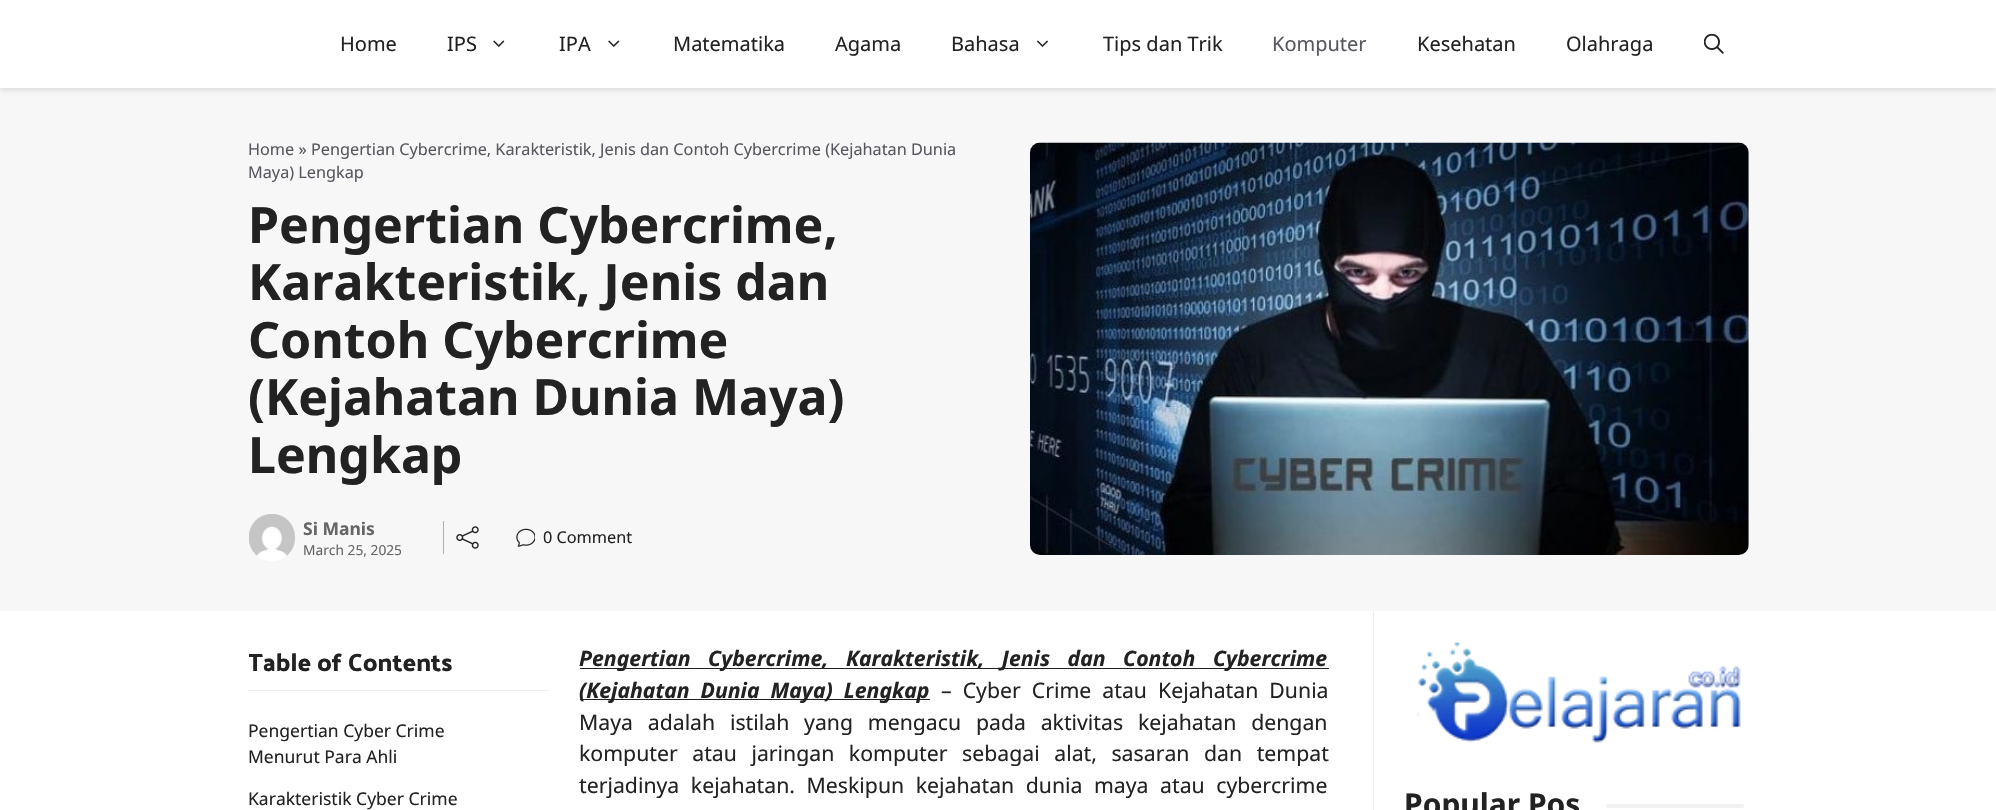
#include "include/core/SkBlurTypes.h"
#include "include/core/SkCanvas.h"
#include "include/core/SkData.h"
#include "include/core/SkFont.h"
#include "include/core/SkFontMgr.h"
#include "include/core/SkImage.h"
#include "include/core/SkMaskFilter.h"
#include "include/core/SkPaint.h"
#include "include/core/SkPathBuilder.h"
#include "include/core/SkTextBlob.h"
#include "include/effects/SkDashPathEffect.h"
#include "include/effects/SkGradientShader.h"
#include "include/utils/SkParsePath.h"

extern sk_sp<SkFontMgr> fontMgr;

static SkFont font(const char* family, int weight, float size, bool italic = false) {
    SkFontStyle style(weight, SkFontStyle::kNormal_Width,
        italic ? SkFontStyle::kItalic_Slant : SkFontStyle::kUpright_Slant);
    SkFont result(fontMgr->matchFamilyStyle(family, style), size);
    result.setSubpixel(true);
    return result;
}

static void drawLabel(SkCanvas* canvas, const char* s, float x, float y, const SkFont& font, SkColor color) {
    SkPaint ink(SkColor4f::FromColor(color));
    ink.setAntiAlias(true);
    canvas->drawString(s, x, y, font, ink);
}

static void drawTracked(SkCanvas* canvas, const char* s, float x, float y, const SkFont& font, const SkPaint& ink, float letter, float word) {
    std::vector<SkGlyphID> glyphs(font.countText(s, strlen(s), SkTextEncoding::kUTF8));
    std::vector<float> xs(glyphs.size());
    font.textToGlyphs(s, strlen(s), SkTextEncoding::kUTF8, glyphs);
    font.getXPos(glyphs, xs, x);
    float extra = 0;
    for (size_t i = 0; i < glyphs.size(); i++) {
        xs[i] += extra;
        extra += letter + word * (glyphs[i] == font.unicharToGlyph(' '));
    }
    canvas->drawTextBlob(SkTextBlob::MakeFromPosHGlyphs(glyphs, xs, y, font), 0, 0, ink);
}

static void fillRect(SkCanvas* canvas, float x, float y, float w, float h, SkColor color) {
    SkPaint ink(SkColor4f::FromColor(color));
    ink.setAntiAlias(true);
    canvas->drawRect(SkRect::MakeXYWH(x, y, w, h), ink);
}

static void fillRRect(SkCanvas* canvas, float x, float y, float w, float h, float radius, SkColor color) {
    SkPaint ink(SkColor4f::FromColor(color));
    ink.setAntiAlias(true);
    canvas->drawRoundRect(SkRect::MakeXYWH(x, y, w, h), radius, radius, ink);
}

static void drawPhoto(SkCanvas* canvas, const char* path, float x, float y, float w, float h) {
    auto image = SkImages::DeferredFromEncodedData(SkData::MakeFromFileName(path));
    canvas->drawImageRect(image, SkRect::MakeXYWH(x, y, w, h), SkSamplingOptions());
}

static SkPath parsePath(const char* data, bool evenOdd = false) {
    SkPath result = *SkParsePath::FromSVGString(data);
    if (evenOdd) result.setFillType(SkPathFillType::kEvenOdd);
    return result;
}

void draw(SkCanvas* canvas) {
    SkPaint paint;
    paint.setAntiAlias(true);
    canvas->clear(0xFFFFFFFF);
    fillRect(canvas, 0, 88, 1996, 523, 0xFFF7F7F7);
    paint.setColor(0x1F000000);
    paint.setMaskFilter(SkMaskFilter::MakeBlur(kNormal_SkBlurStyle, 2.5f));
    canvas->drawRect(SkRect::MakeXYWH(0, 3, 1996, 87), paint);
    paint.setMaskFilter(nullptr);
    fillRect(canvas, 0, 0, 1996, 88, 0xFFFFFFFF);
    SkFont font1 = font("Noto Sans", 400, 20);
    drawLabel(canvas, "Home", 340, 51, font1, 0xFF222222);
    drawLabel(canvas, "IPS", 447, 51, font1, 0xFF222222);
    drawPhoto(canvas, "assets/img1.png", 493, 40, 12, 7);
    drawLabel(canvas, "IPA", 559, 51, font1, 0xFF222222);
    drawPhoto(canvas, "assets/img1.png", 608, 40, 12, 7);
    drawLabel(canvas, "Matematika", 673, 51, font1, 0xFF222222);
    drawLabel(canvas, "Agama", 835, 51, font1, 0xFF222222);
    drawLabel(canvas, "Bahasa", 951, 51, font1, 0xFF222222);
    drawPhoto(canvas, "assets/img2.png", 1037, 40, 11, 7);
    drawLabel(canvas, "Tips dan Trik", 1103, 51, font1, 0xFF222222);
    drawLabel(canvas, "Komputer", 1272, 51, font1, 0xFF575760);
    drawLabel(canvas, "Kesehatan", 1417, 51, font1, 0xFF222222);
    drawLabel(canvas, "Olahraga", 1566, 51, font1, 0xFF222222);
    drawPhoto(canvas, "assets/img3.png", 1704, 34, 20, 20);
    SkFont font2 = font("Noto Sans", 400, 16.25f);
    drawLabel(canvas, "Home » Pengertian Cybercrime, Karakteristik, Jenis dan Contoh Cybercrime (Kejahatan Dunia", 248, 155, font2, 0xFF575760);
    drawLabel(canvas, "Maya) Lengkap", 248, 178, font2, 0xFF575760);
    SkFont font3 = font("Noto Sans", 700, 50);
    drawLabel(canvas, "Pengertian Cybercrime,", 248, 243, font3, 0xFF222222);
    drawLabel(canvas, "Karakteristik, Jenis dan", 248, 300, font3, 0xFF222222);
    drawLabel(canvas, "Contoh Cybercrime", 248, 358, font3, 0xFF222222);
    drawLabel(canvas, "(Kejahatan Dunia Maya)", 248, 415, font3, 0xFF222222);
    drawLabel(canvas, "Lengkap", 248, 473, font3, 0xFF222222);
    drawPhoto(canvas, "assets/img4.png", 249, 514, 46, 47);
    SkFont font4 = font("Noto Sans", 700, 17.5f);
    drawLabel(canvas, "Si Manis", 303, 535, font4, 0xFF666666);
    SkFont font5 = font("Noto Sans", 400, 13.75f);
    drawLabel(canvas, "March 25, 2025", 303, 555, font5, 0xFF666666);
    fillRect(canvas, 443, 521, 1, 33, 0xFFAFAFAF);
    drawPhoto(canvas, "assets/img5.png", 456, 526, 23, 23);
    drawPhoto(canvas, "assets/img6.png", 516, 528, 19, 19);
    drawLabel(canvas, "0 Comment", 543, 543, font2, 0xFF222222);
    drawPhoto(canvas, "assets/img7.png", 1030, 142, 719, 413);
    fillRect(canvas, 249, 690, 300, 1, 0xFFEEEEEE);
    canvas->save();
    canvas->clipPath(parsePath("M254 643H544C547 643 549 645 549 648V915C549 918 547 920 544 920H254C251 920 249 918 249 915V648C249 645 251 643 254 643Z"), true);
    SkFont font6 = font("Palanquin Dark", 500, 25);
    drawLabel(canvas, "Table of Contents", 248, 671, font6, 0xFF222222);
    canvas->restore();
    SkFont font7 = font("Noto Sans", 400, 17.5f);
    drawLabel(canvas, "Pengertian Cyber Crime", 248, 737, font7, 0xFF222222);
    drawLabel(canvas, "Menurut Para Ahli", 248, 763, font7, 0xFF222222);
    drawLabel(canvas, "Karakteristik Cyber Crime", 248, 805, font7, 0xFF222222);
    fillRect(canvas, 1373, 611, 1, 199, 0xFFEEEEEE);
    fillRect(canvas, 580, 668, 749, 1, 0xFF222222);
    SkFont font8 = font("Noto Sans", 700, 21.25f, true);
    paint.setColor(0xFF222222);
    drawTracked(canvas, "Pengertian Cybercrime, Karakteristik, Jenis dan Contoh Cybercrime", 579, 666, font8, paint, 0, 12);
    fillRect(canvas, 580, 699, 350, 1, 0xFF222222);
    drawTracked(canvas, "(Kejahatan Dunia Maya) Lengkap", 579, 698, font8, paint, 0, 5.5f);
    SkFont font9 = font("Noto Sans", 400, 21.25f);
    drawTracked(canvas, "– Cyber Crime atau Kejahatan Dunia", 941, 698, font9, paint, 0, 5.5f);
    drawTracked(canvas, "Maya adalah istilah yang mengacu pada aktivitas kejahatan dengan", 579, 730, font9, paint, 0, 9.25f);
    drawTracked(canvas, "komputer atau jaringan komputer sebagai alat, sasaran dan tempat", 579, 761, font9, paint, 0, 9);
    drawTracked(canvas, "terjadinya kejahatan. Meskipun kejahatan dunia maya atau cybercrime", 579, 793, font9, paint, 0, 6);
    drawPhoto(canvas, "assets/img8.png", 1417, 642, 324, 101);
    SkFont font10 = font("Noto Sans", 700, 30);
    drawLabel(canvas, "Popular Pos", 1404, 815, font10, 0xFF222222);
    fillRRect(canvas, 1606, 804, 138, 4, 2, 0xFFF1F1F1);
}
